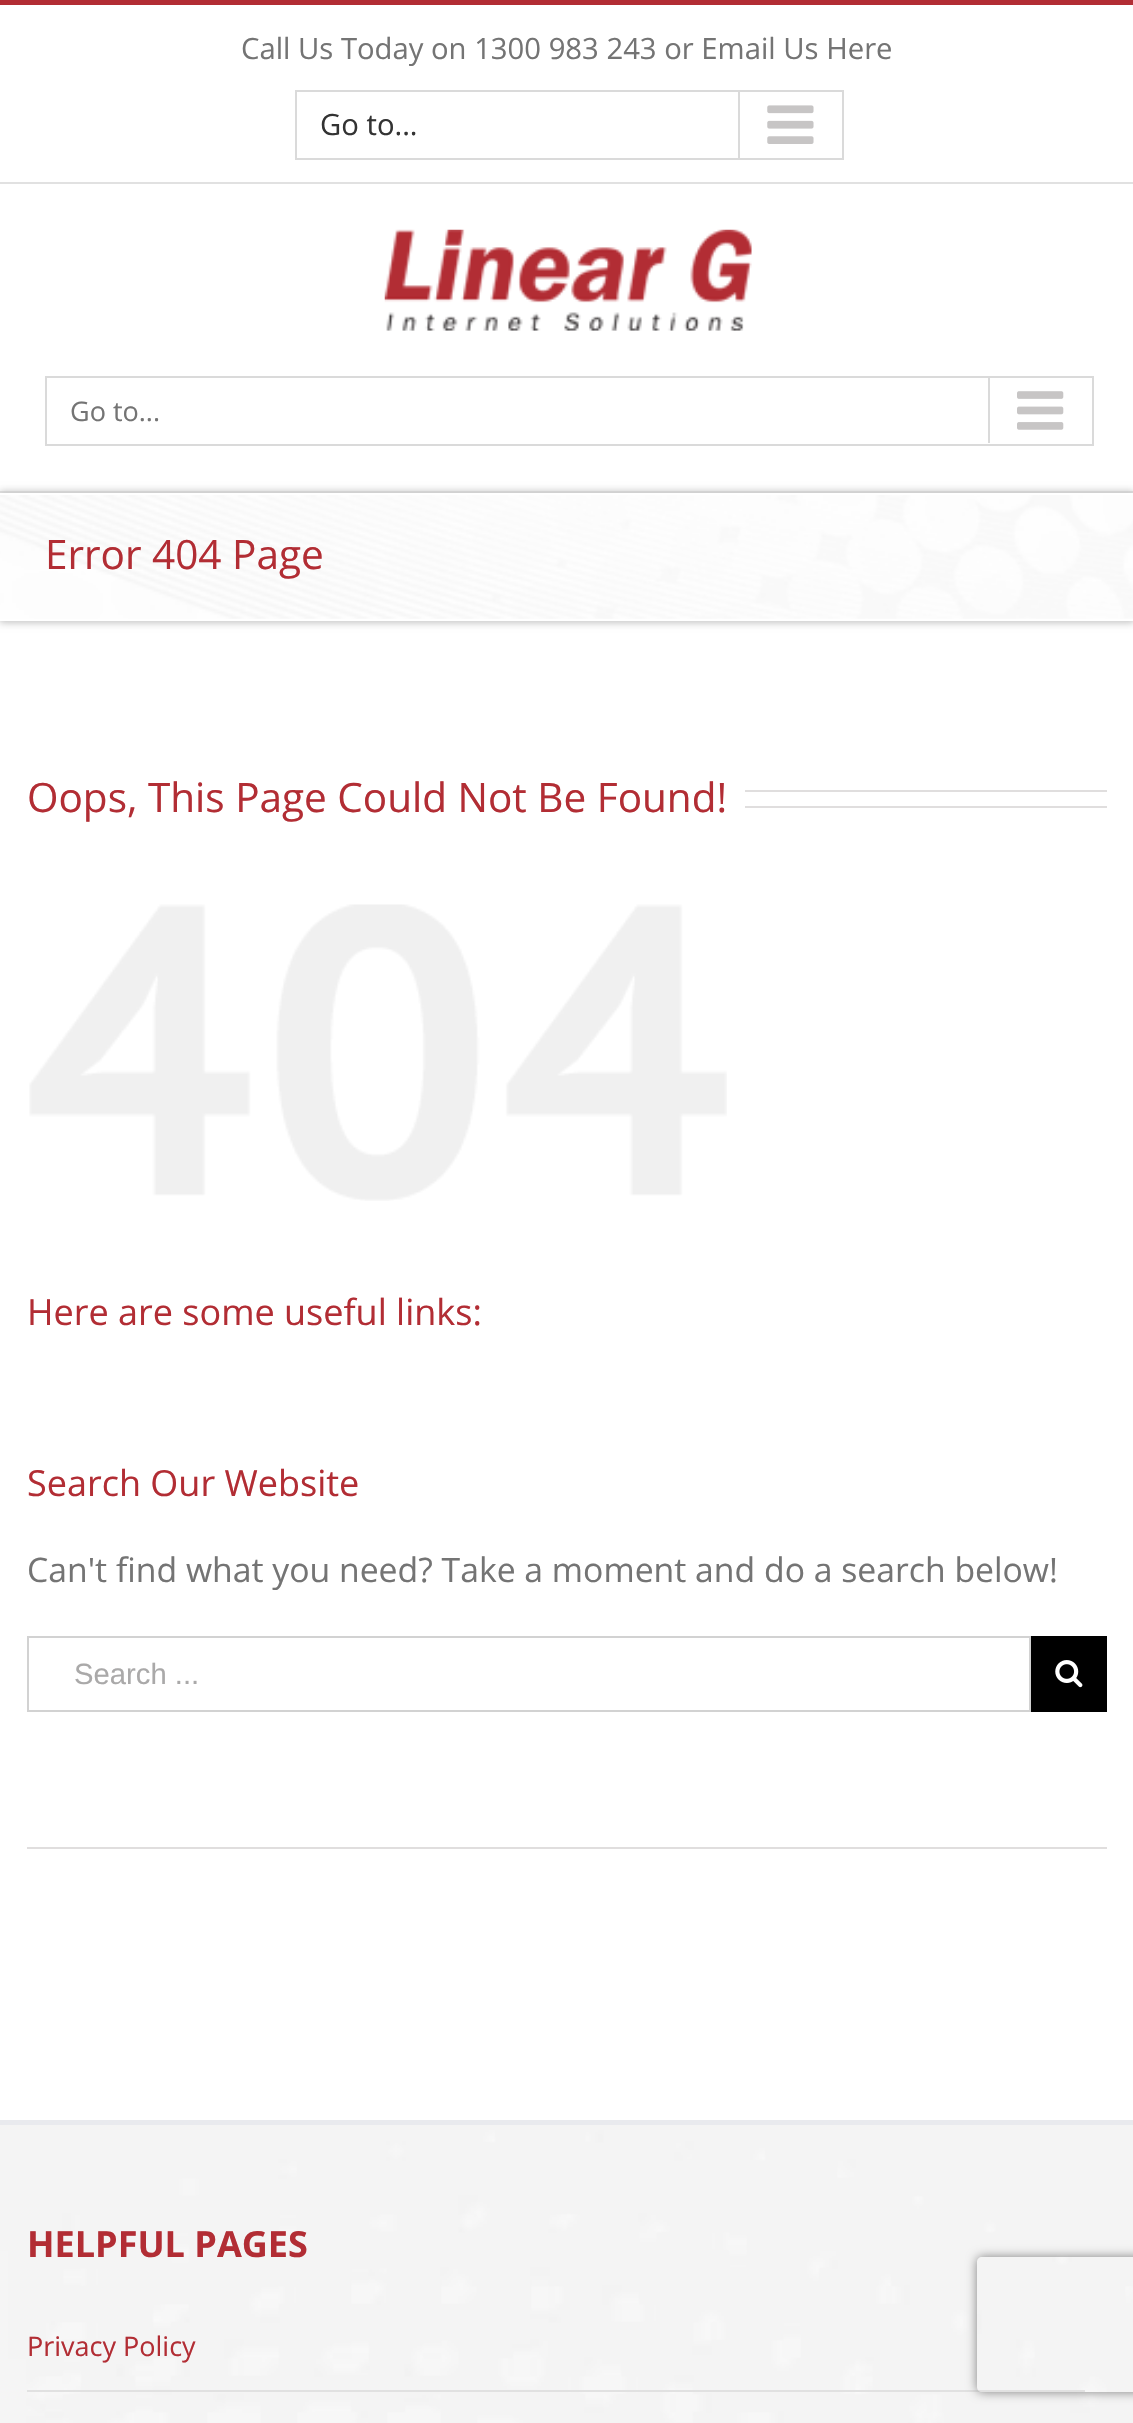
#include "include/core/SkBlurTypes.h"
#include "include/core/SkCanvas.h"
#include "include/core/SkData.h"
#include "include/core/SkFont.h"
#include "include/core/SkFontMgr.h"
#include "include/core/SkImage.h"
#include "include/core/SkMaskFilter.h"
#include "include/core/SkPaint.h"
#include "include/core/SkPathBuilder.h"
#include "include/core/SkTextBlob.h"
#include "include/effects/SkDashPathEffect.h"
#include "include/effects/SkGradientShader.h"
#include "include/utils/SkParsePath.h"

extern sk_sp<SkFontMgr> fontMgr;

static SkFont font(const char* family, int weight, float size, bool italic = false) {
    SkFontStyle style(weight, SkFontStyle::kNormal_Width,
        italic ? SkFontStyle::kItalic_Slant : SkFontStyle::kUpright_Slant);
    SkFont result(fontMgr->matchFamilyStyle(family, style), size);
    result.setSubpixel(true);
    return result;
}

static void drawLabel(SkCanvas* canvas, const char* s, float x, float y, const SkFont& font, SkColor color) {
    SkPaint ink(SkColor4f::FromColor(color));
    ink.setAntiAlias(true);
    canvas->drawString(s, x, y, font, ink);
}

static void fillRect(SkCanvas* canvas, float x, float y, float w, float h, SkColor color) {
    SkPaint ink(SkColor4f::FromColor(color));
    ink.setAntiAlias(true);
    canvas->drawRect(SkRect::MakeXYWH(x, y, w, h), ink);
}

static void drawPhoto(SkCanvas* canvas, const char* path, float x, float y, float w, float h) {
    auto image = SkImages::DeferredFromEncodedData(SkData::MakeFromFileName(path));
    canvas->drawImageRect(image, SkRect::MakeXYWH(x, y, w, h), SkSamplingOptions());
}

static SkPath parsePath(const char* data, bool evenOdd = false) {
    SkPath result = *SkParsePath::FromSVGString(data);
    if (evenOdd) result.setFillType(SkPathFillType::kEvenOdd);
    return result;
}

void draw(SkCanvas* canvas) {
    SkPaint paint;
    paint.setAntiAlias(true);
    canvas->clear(0xFFFFFFFF);
    fillRect(canvas, 0, 0, 1133, 5, 0xFFB22D34);
    fillRect(canvas, 0, 182, 1133, 2, 0xFFE1E1E1);
    SkFont font1 = font("Open Sans", 400, 29.25f);
    drawLabel(canvas, "Call Us Today on 1300 983 243 or Email Us Here", 241, 59, font1, 0xFF747474);
    paint.setStroke(true);
    paint.setStrokeWidth(2);
    paint.setColor(0xFFDADADA);
    canvas->drawRect(SkRect::MakeXYWH(296, 91, 547, 68), paint);
    drawLabel(canvas, "Go to...", 320, 135, font1, 0xFF333333);
    fillRect(canvas, 738, 92, 2, 66, 0xFFDADADA);
    drawPhoto(canvas, "assets/img1.png", 767, 105, 47, 39);
    fillRect(canvas, 0, 491, 1133, 2, 0xFFE1E1E1);
    drawPhoto(canvas, "assets/img2.png", 384, 229, 368, 102);
    canvas->drawRect(SkRect::MakeXYWH(46, 377, 1047, 68), paint);
    SkFont font2 = font("Open Sans", 400, 27);
    drawLabel(canvas, "Go to...", 70, 421, font2, 0xFF747474);
    fillRect(canvas, 988, 378, 2, 65, 0xFFDADADA);
    drawPhoto(canvas, "assets/img3.png", 1017, 391, 47, 39);
    canvas->save();
    canvas->clipPath(parsePath("M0 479H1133V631H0ZM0 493H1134V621H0Z", true), true);
    paint.setStroke(false);
    paint.setColor(0xFFCCCCCC);
    paint.setMaskFilter(SkMaskFilter::MakeBlur(kNormal_SkBlurStyle, 3.5f));
    canvas->drawRect(SkRect::MakeXYWH(0, 491, 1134, 128), paint);
    paint.setMaskFilter(nullptr);
    canvas->restore();
    canvas->save();
    canvas->clipPath(parsePath("M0 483H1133V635H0ZM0 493H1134V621H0Z", true), true);
    paint.setMaskFilter(SkMaskFilter::MakeBlur(kNormal_SkBlurStyle, 3.5f));
    canvas->drawRect(SkRect::MakeXYWH(0, 495, 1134, 128), paint);
    paint.setMaskFilter(nullptr);
    canvas->restore();
    drawPhoto(canvas, "assets/img4.png", 0, 495, 1133, 124);
    SkFont font3 = font("Open Sans", 400, 40.5f);
    drawLabel(canvas, "Error 404 Page", 45, 569, font3, 0xFFB22D34);
    drawLabel(canvas, "Oops, This Page Could Not Be Found!", 27, 812, font3, 0xFFB22D34);
    fillRect(canvas, 745, 790, 362, 2, 0xFFE0DEDE);
    fillRect(canvas, 745, 806, 362, 2, 0xFFE0DEDE);
    drawPhoto(canvas, "assets/img5.png", 29, 904, 698, 297);
    SkFont font4 = font("Open Sans", 400, 36);
    drawLabel(canvas, "Here are some useful links:", 27, 1325, font4, 0xFFB22D34);
    drawLabel(canvas, "Search Our Website", 27, 1496, font4, 0xFFB22D34);
    SkFont font5 = font("Open Sans", 400, 33.75f);
    drawLabel(canvas, "Can't find what you need? Take a moment and do a search below!", 27, 1582, font5, 0xFF747474);
    fillRect(canvas, 27, 1847, 1080, 2, 0xFFE0DEDE);
    paint.setStroke(true);
    paint.setColor(0xFFD2D2D2);
    canvas->drawRect(SkRect::MakeXYWH(28, 1637, 1002, 74), paint);
    SkFont font6 = font("Liberation Sans", 400, 29.25f);
    drawLabel(canvas, "Search ...", 74, 1684, font6, 0xFFAAA9A9);
    fillRect(canvas, 1031, 1636, 76, 76, 0xFF000000);
    drawPhoto(canvas, "assets/img6.png", 1055, 1660, 28, 28);
    drawPhoto(canvas, "assets/img7.png", 0, 2125, 1133, 298);
    fillRect(canvas, 0, 2120, 1133, 5, 0xFFE9EAEE);
    SkFont font7 = font("Open Sans", 700, 36);
    drawLabel(canvas, "HELPFUL PAGES", 27, 2257, font7, 0xFFB22D34);
    fillRect(canvas, 27, 2390, 1058, 2, 0xFFE1E1E1);
    drawLabel(canvas, "Privacy Policy", 27, 2356, font2, 0xFFB22D34);
    canvas->save();
    canvas->clipPath(parsePath("M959 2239H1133V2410H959ZM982 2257H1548C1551 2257 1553 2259 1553 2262V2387C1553 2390 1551 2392 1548 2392H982C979 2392 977 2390 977 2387V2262C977 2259 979 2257 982 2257Z", true), true);
    paint.setStroke(false);
    paint.setColor(0xFF808080);
    paint.setMaskFilter(SkMaskFilter::MakeBlur(kNormal_SkBlurStyle, 5.5f));
    canvas->drawRoundRect(SkRect::MakeXYWH(977, 2257, 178, 135), 5, 5, paint);
    paint.setMaskFilter(nullptr);
    canvas->restore();
}
